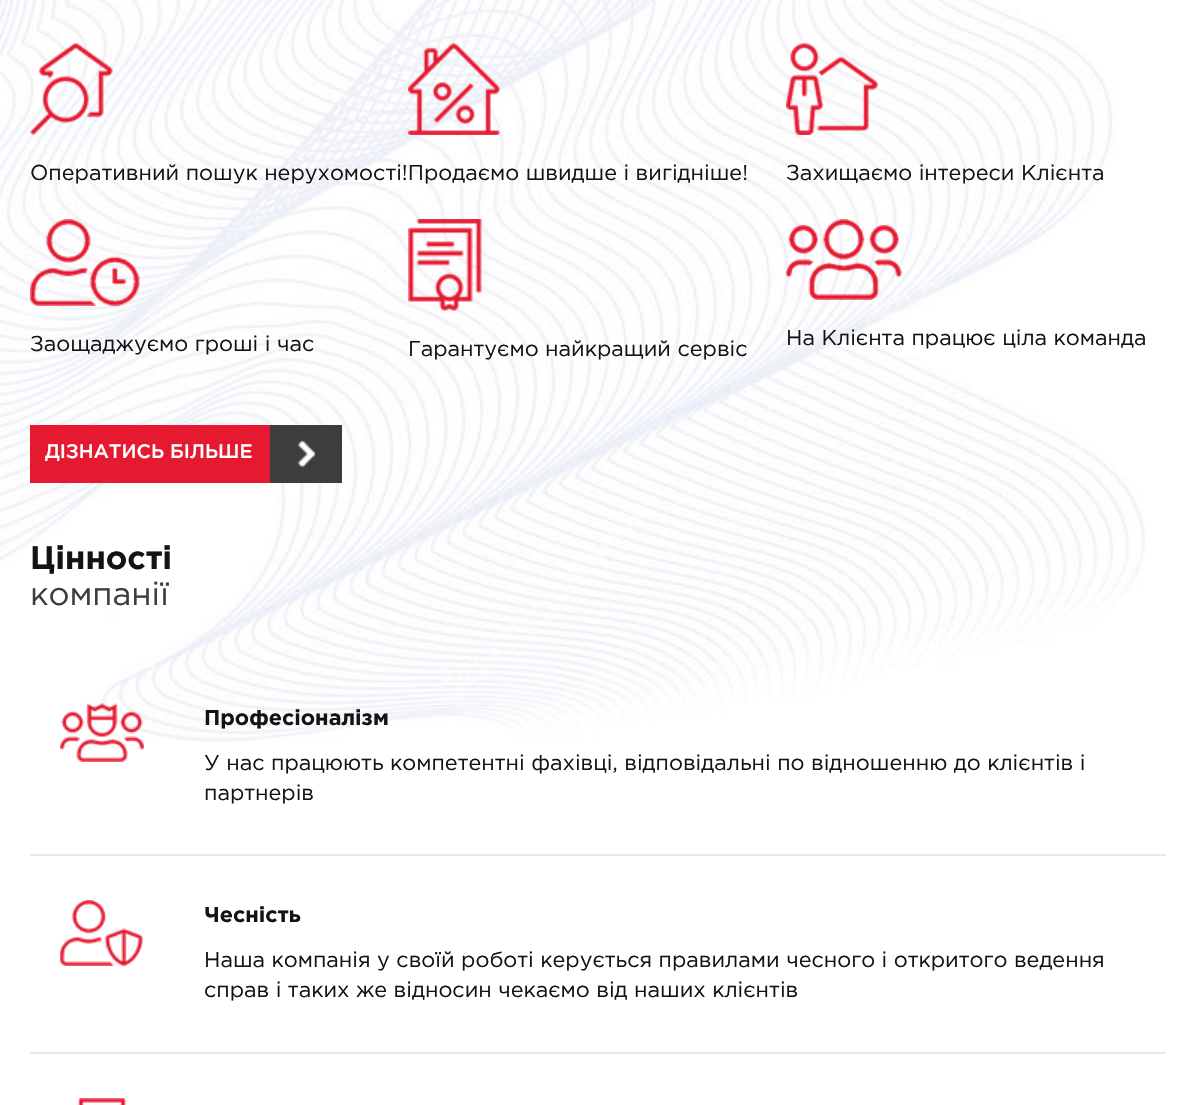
#include "include/core/SkBlurTypes.h"
#include "include/core/SkCanvas.h"
#include "include/core/SkData.h"
#include "include/core/SkFont.h"
#include "include/core/SkFontMgr.h"
#include "include/core/SkImage.h"
#include "include/core/SkMaskFilter.h"
#include "include/core/SkPaint.h"
#include "include/core/SkPathBuilder.h"
#include "include/core/SkTextBlob.h"
#include "include/effects/SkDashPathEffect.h"
#include "include/effects/SkGradientShader.h"
#include "include/utils/SkParsePath.h"

extern sk_sp<SkFontMgr> fontMgr;

static SkFont font(const char* family, int weight, float size, bool italic = false) {
    SkFontStyle style(weight, SkFontStyle::kNormal_Width,
        italic ? SkFontStyle::kItalic_Slant : SkFontStyle::kUpright_Slant);
    SkFont result(fontMgr->matchFamilyStyle(family, style), size);
    result.setSubpixel(true);
    return result;
}

static void drawLabel(SkCanvas* canvas, const char* s, float x, float y, const SkFont& font, SkColor color) {
    SkPaint ink(SkColor4f::FromColor(color));
    ink.setAntiAlias(true);
    canvas->drawString(s, x, y, font, ink);
}

static void fillRect(SkCanvas* canvas, float x, float y, float w, float h, SkColor color) {
    SkPaint ink(SkColor4f::FromColor(color));
    ink.setAntiAlias(true);
    canvas->drawRect(SkRect::MakeXYWH(x, y, w, h), ink);
}

static void drawPhoto(SkCanvas* canvas, const char* path, float x, float y, float w, float h) {
    auto image = SkImages::DeferredFromEncodedData(SkData::MakeFromFileName(path));
    canvas->drawImageRect(image, SkRect::MakeXYWH(x, y, w, h), SkSamplingOptions());
}

void draw(SkCanvas* canvas) {
    SkPaint paint;
    paint.setAntiAlias(true);
    canvas->clear(0xFFFFFFFF);
    drawPhoto(canvas, "assets/img1.png", 0, 0, 1145, 742);
    drawPhoto(canvas, "assets/img2.png", 408, 43, 92, 92);
    drawPhoto(canvas, "assets/img3.png", 30, 43, 83, 92);
    SkFont font1 = font("Gotham", 400, 21.6f);
    drawLabel(canvas, "Оперативний пошук нерухомості!Продаємо швидше і вигідніше!", 30, 180, font1, 0xFF141213);
    drawPhoto(canvas, "assets/img4.png", 786, 43, 92, 92);
    drawLabel(canvas, "Захищаємо інтереси Клієнта", 786, 180, font1, 0xFF141213);
    drawPhoto(canvas, "assets/img5.png", 30, 219, 110, 87);
    drawLabel(canvas, "Заощаджуємо гроші і час", 30, 351, font1, 0xFF141213);
    drawPhoto(canvas, "assets/img6.png", 408, 219, 74, 92);
    drawLabel(canvas, "Гарантуємо найкращий сервіс", 408, 356, font1, 0xFF141213);
    drawPhoto(canvas, "assets/img7.png", 786, 219, 116, 81);
    drawLabel(canvas, "На Клієнта працює ціла команда", 786, 345, font1, 0xFF141213);
    fillRect(canvas, 30, 425, 240, 58, 0xFFE51A31);
    SkFont font2 = font("Gotham", 500, 19.5f);
    drawLabel(canvas, "ДІЗНАТИСЬ БІЛЬШЕ", 45, 458, font2, 0xFFFFFFFF);
    fillRect(canvas, 270, 425, 72, 58, 0xFF3D3D3D);
    drawPhoto(canvas, "assets/img8.png", 298, 441, 17, 26);
    SkFont font3 = font("Gotham", 700, 32.5f);
    drawLabel(canvas, "Цінності", 30, 569, font3, 0xFF141213);
    SkFont font4 = font("Gotham", 400, 32.5f);
    drawLabel(canvas, "компанії", 30, 605, font4, 0xFF3D3D3D);
    drawPhoto(canvas, "assets/img9.png", 60, 703, 84, 59);
    SkFont font5 = font("Gotham", 700, 21.6f);
    drawLabel(canvas, "Професіоналізм", 204, 725, font5, 0xFF141213);
    drawLabel(canvas, "У нас працюють компетентні фахівці, відповідальні по відношенню до клієнтів і", 204, 770, font1, 0xFF141213);
    drawLabel(canvas, "партнерів", 204, 800, font1, 0xFF141213);
    drawPhoto(canvas, "assets/img10.png", 60, 900, 83, 66);
    fillRect(canvas, 30, 854, 1136, 2, 0xFFE4E9ED);
    drawLabel(canvas, "Чесність", 204, 922, font5, 0xFF141213);
    drawLabel(canvas, "Наша компанія у своїй роботі керується правилами чесного і откритого ведення", 204, 967, font1, 0xFF141213);
    drawLabel(canvas, "справ і таких же відносин чекаємо від наших клієнтів", 204, 997, font1, 0xFF141213);
    fillRect(canvas, 30, 1052, 1136, 2, 0xFFE4E9ED);
    drawPhoto(canvas, "assets/img11.png", 77, 1098, 50, 7);
}
